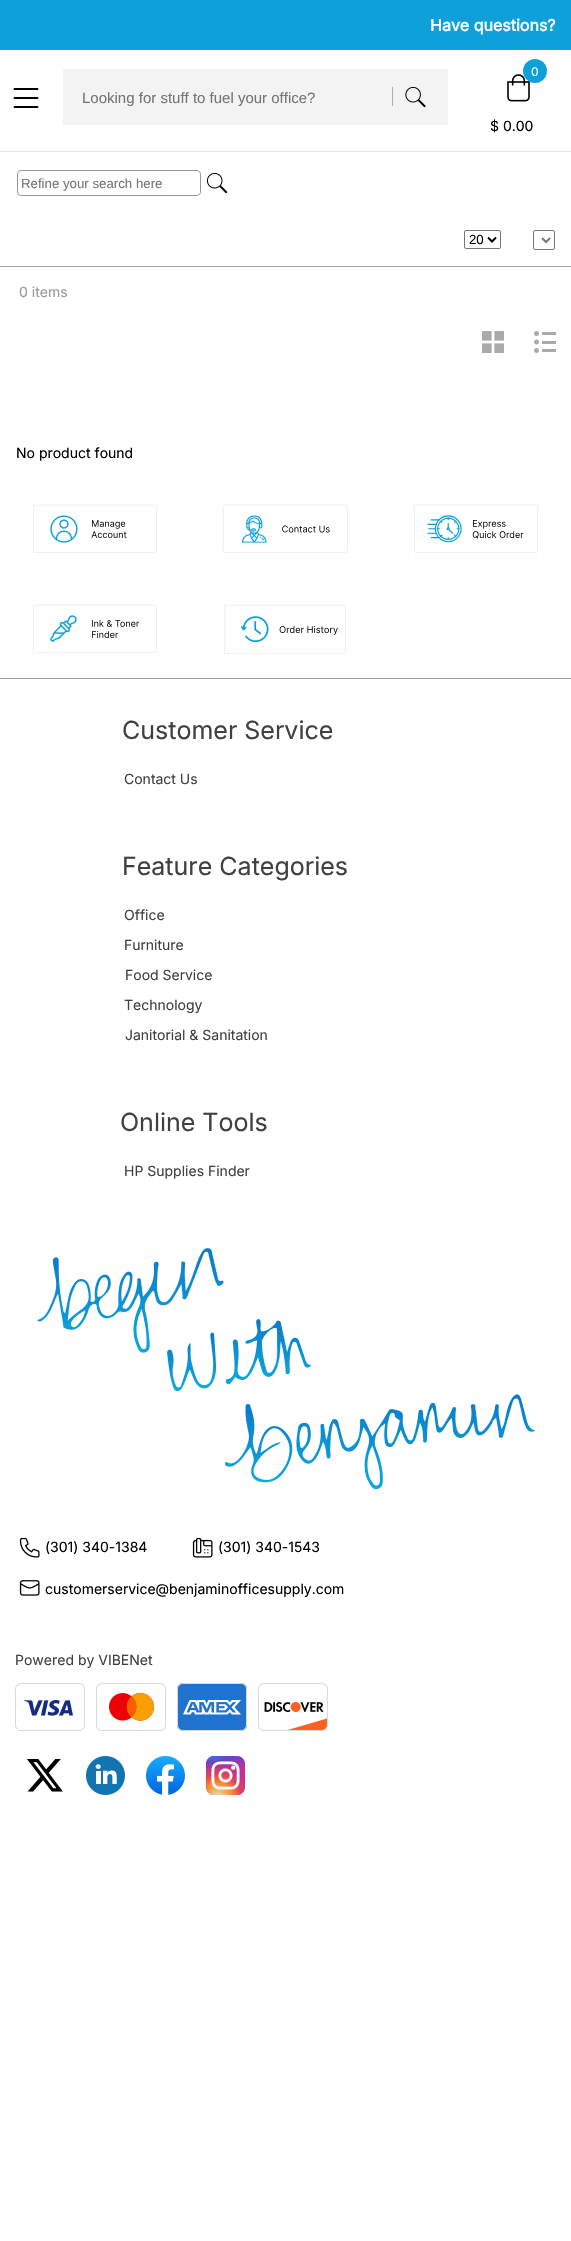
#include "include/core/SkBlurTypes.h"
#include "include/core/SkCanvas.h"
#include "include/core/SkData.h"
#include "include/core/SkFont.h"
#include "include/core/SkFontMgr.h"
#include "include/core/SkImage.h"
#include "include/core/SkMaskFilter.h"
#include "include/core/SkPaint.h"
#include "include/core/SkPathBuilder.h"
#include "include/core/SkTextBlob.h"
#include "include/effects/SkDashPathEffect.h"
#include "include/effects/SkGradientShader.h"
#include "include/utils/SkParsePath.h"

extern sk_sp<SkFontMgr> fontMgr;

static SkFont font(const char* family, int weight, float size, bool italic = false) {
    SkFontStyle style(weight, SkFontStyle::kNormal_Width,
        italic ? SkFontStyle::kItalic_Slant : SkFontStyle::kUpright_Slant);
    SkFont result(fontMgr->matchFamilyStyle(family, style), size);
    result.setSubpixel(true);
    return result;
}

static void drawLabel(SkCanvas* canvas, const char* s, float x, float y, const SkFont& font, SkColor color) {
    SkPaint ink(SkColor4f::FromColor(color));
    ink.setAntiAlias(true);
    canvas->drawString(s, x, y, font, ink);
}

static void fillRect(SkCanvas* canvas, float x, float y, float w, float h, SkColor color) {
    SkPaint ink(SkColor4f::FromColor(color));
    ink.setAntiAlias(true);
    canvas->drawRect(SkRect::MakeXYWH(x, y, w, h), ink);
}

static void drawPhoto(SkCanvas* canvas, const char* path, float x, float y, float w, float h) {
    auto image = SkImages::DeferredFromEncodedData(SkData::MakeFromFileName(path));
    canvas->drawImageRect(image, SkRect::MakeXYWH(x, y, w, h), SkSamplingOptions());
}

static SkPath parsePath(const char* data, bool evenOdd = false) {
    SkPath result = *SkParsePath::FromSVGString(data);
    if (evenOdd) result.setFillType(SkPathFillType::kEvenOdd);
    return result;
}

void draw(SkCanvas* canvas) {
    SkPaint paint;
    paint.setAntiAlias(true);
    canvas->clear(0xFFFFFFFF);
    fillRect(canvas, 0, 0, 571, 50, 0xFF0DA0D9);
    SkFont font1 = font("Inter", 700, 16);
    drawLabel(canvas, "Have questions?", 430, 31, font1, 0xFFFFFFFF);
    fillRect(canvas, 0, 151, 571, 1, 0xFFE6E6E6);
    paint.setStroke(true);
    paint.setStrokeWidth(1.9f);
    paint.setStrokeCap(SkPaint::kRound_Cap);
    paint.setStrokeJoin(SkPaint::kRound_Join);
    paint.setColor(0xFF000000);
    canvas->drawPath(parsePath("M14.5 89H37.5M14.5 98H37.5M14.5 107H37.5"), paint);
    fillRect(canvas, 63, 69, 385, 56, 0xFFF3F3F3);
    SkFont font2 = font("Liberation Sans", 400, 15);
    drawLabel(canvas, "Looking for stuff to fuel your office?", 82, 103, font2, 0xFF757575);
    drawPhoto(canvas, "assets/img1.png", 392, 86, 34, 22);
    drawPhoto(canvas, "assets/img2.png", 507, 74, 23, 28);
    paint.setStroke(false);
    paint.setColor(0xFF0DA0D9);
    canvas->drawCircle(535, 71, 12, paint);
    SkFont font3 = font("Inter", 400, 12);
    drawLabel(canvas, "0", 531, 76, font3, 0xFFFFFFFF);
    SkFont font4 = font("Inter", 400, 14);
    drawLabel(canvas, "$ 0.00", 490, 131, font4, 0xFF000000);
    fillRect(canvas, 0, 266, 571, 1, 0xFFA1A1A1);
    paint.setStroke(true);
    paint.setStrokeWidth(1);
    paint.setStrokeCap(SkPaint::kButt_Cap);
    paint.setStrokeJoin(SkPaint::kMiter_Join);
    paint.setColor(0xFF999999);
    canvas->drawRoundRect(SkRect::MakeXYWH(17.5f, 170.5f, 183, 25), 3.5f, 3.5f, paint);
    SkFont font5 = font("Liberation Sans", 400, 13.25f);
    drawLabel(canvas, "Refine your search here", 21, 188, font5, 0xFF757575);
    drawPhoto(canvas, "assets/img3.png", 206, 172, 22, 22);
    paint.setColor(0xFF767676);
    canvas->drawRoundRect(SkRect::MakeXYWH(464.5f, 230.5f, 36, 18), 1.5f, 1.5f, paint);
    paint.setStrokeWidth(2);
    paint.setColor(0xFF000000);
    canvas->drawPath(parsePath("M488 237.5L492 241.5L496 237.5"), paint);
    drawLabel(canvas, "20", 469, 244, font5, 0xFF000000);
    paint.setStrokeWidth(1);
    paint.setColor(0xFF767676);
    canvas->drawRoundRect(SkRect::MakeXYWH(533.5f, 230.5f, 21, 19), 1.5f, 1.5f, paint);
    paint.setStrokeWidth(2);
    paint.setColor(0xFF787878);
    canvas->drawPath(parsePath("M542 238L546 242L550 238"), paint);
    drawLabel(canvas, "0 items", 19, 297, font4, 0xFF999999);
    drawPhoto(canvas, "assets/img4.png", 482, 331, 22, 22);
    drawPhoto(canvas, "assets/img5.png", 534, 331, 22, 22);
    drawLabel(canvas, "No product found", 16, 458, font4, 0xFF000000);
    drawPhoto(canvas, "assets/img6.png", 33, 504, 124, 49);
    drawPhoto(canvas, "assets/img7.png", 223, 504, 125, 49);
    drawPhoto(canvas, "assets/img8.png", 414, 504, 124, 49);
    drawPhoto(canvas, "assets/img9.png", 33, 604, 124, 49);
    drawPhoto(canvas, "assets/img10.png", 224, 604, 122, 50);
    fillRect(canvas, 0, 678, 571, 1, 0xFFA1A1A1);
    SkFont font6 = font("Inter", 400, 25);
    drawLabel(canvas, "Customer Service", 122, 739, font6, 0xFF404040);
    drawLabel(canvas, "Contact Us", 124, 784, font4, 0xFF404040);
    drawLabel(canvas, "Feature Categories", 122, 875, font6, 0xFF404040);
    drawLabel(canvas, "Office", 124, 920, font4, 0xFF404040);
    drawLabel(canvas, "Furniture", 124, 950, font4, 0xFF404040);
    drawLabel(canvas, "Food Service", 125, 980, font4, 0xFF404040);
    drawLabel(canvas, "Technology", 124, 1010, font4, 0xFF404040);
    drawLabel(canvas, "Janitorial & Sanitation", 125, 1040, font4, 0xFF404040);
    drawLabel(canvas, "Online Tools", 120, 1131, font6, 0xFF404040);
    drawLabel(canvas, "HP Supplies Finder", 124, 1176, font4, 0xFF404040);
    drawPhoto(canvas, "assets/img11.png", 37, 1248, 499, 242);
    drawPhoto(canvas, "assets/img12.png", 19, 1537, 21, 21);
    drawLabel(canvas, "(301) 340-1384", 45, 1552, font4, 0xFF000000);
    drawPhoto(canvas, "assets/img13.png", 192, 1537, 21, 21);
    drawLabel(canvas, "(301) 340-1543", 218, 1552, font4, 0xFF000000);
    drawPhoto(canvas, "assets/img14.png", 19, 1580, 21, 16);
    drawLabel(canvas, "customerservice@benjaminofficesupply.com", 45, 1594, font4, 0xFF000000);
    drawLabel(canvas, "Powered by VIBENet", 15, 1665, font4, 0xFF404040);
    drawPhoto(canvas, "assets/img15.png", 15, 1683, 313, 48);
    drawPhoto(canvas, "assets/img16.png", 27, 1759, 36, 33);
    drawPhoto(canvas, "assets/img17.png", 86, 1756, 39, 39);
    drawPhoto(canvas, "assets/img18.png", 146, 1756, 39, 39);
    drawPhoto(canvas, "assets/img19.png", 206, 1756, 39, 39);
}
